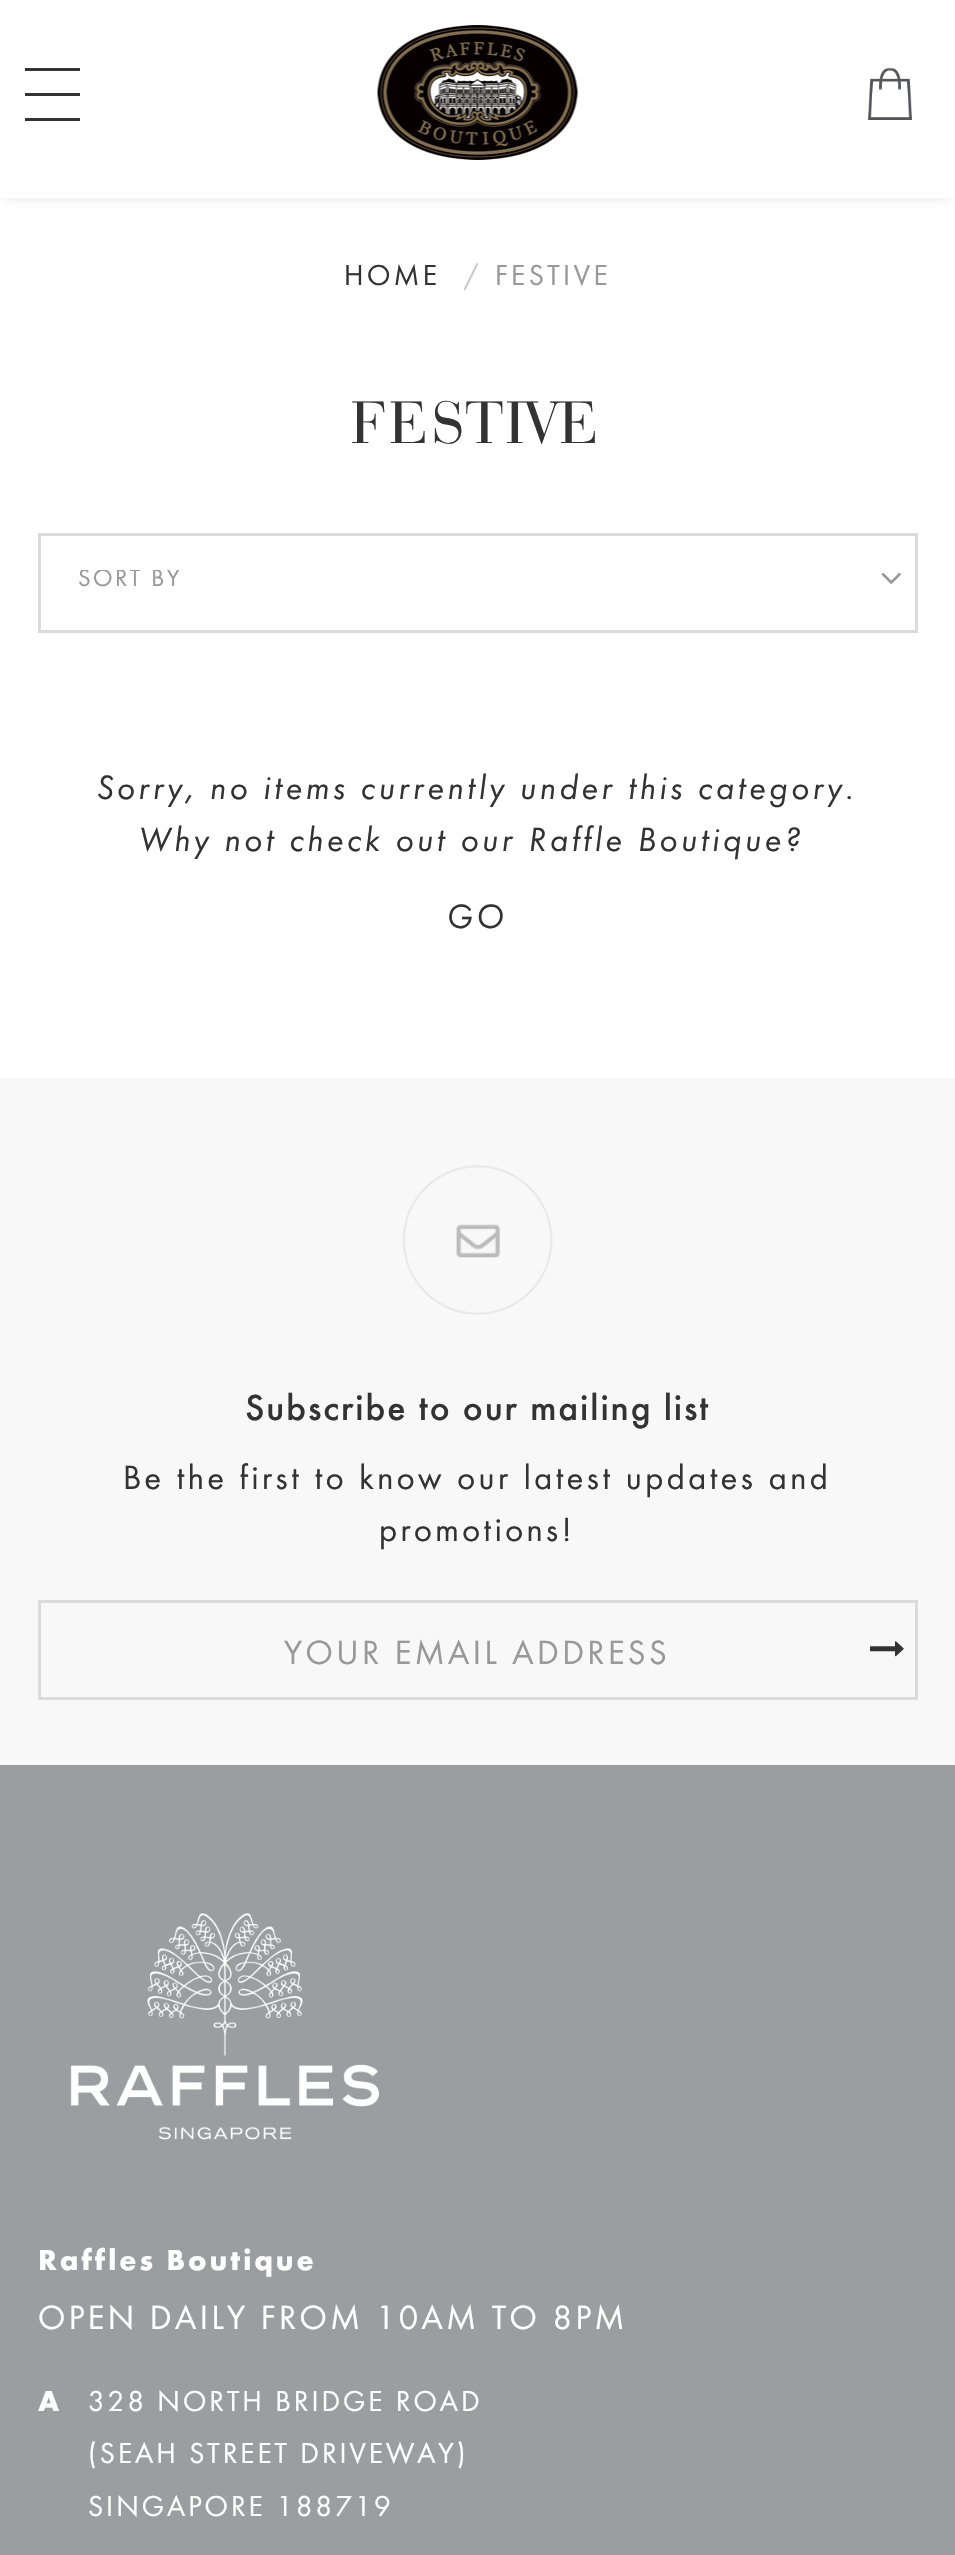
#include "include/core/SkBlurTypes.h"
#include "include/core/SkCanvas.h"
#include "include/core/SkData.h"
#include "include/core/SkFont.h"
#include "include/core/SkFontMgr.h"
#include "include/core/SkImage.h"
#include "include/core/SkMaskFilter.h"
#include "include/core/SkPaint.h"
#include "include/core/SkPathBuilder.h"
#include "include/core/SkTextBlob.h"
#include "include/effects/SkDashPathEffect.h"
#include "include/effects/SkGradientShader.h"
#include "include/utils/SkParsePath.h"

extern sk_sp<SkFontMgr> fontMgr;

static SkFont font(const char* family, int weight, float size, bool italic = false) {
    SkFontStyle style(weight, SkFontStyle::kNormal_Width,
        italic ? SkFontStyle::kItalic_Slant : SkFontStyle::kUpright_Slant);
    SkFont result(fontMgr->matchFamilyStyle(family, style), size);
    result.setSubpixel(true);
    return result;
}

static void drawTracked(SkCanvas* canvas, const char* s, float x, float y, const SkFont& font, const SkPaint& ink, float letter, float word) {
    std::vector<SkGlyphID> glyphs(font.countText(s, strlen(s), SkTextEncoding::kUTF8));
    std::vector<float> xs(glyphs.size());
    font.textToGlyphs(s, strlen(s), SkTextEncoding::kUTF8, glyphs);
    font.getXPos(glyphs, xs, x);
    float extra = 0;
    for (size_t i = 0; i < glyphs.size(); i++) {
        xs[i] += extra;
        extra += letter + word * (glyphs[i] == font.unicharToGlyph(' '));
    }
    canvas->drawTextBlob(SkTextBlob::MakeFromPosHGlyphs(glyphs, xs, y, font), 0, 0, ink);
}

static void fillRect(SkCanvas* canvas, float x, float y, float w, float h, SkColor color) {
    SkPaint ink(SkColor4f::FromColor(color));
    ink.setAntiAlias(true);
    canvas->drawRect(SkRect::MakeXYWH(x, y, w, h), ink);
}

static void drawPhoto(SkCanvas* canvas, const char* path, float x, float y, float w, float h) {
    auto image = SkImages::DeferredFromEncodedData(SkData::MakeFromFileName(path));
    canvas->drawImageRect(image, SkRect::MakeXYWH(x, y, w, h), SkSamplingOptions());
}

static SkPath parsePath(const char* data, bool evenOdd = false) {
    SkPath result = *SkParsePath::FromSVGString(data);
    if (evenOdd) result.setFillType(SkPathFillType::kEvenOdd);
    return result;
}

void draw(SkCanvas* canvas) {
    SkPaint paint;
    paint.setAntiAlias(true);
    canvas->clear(0xFFFFFFFF);
    canvas->save();
    canvas->clipPath(parsePath("M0 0H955V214H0ZM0 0H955V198H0Z", true), true);
    paint.setColor(0x1A000000);
    paint.setMaskFilter(SkMaskFilter::MakeBlur(kNormal_SkBlurStyle, 5));
    canvas->drawRect(SkRect::MakeXYWH(5, 10, 945, 188), paint);
    paint.setMaskFilter(nullptr);
    canvas->restore();
    fillRect(canvas, 25, 68, 55, 3, 0xFF333333);
    fillRect(canvas, 25, 93, 55, 3, 0xFF333333);
    fillRect(canvas, 25, 118, 55, 3, 0xFF333333);
    drawPhoto(canvas, "assets/img1.png", 377, 25, 201, 135);
    drawPhoto(canvas, "assets/img2.png", 868, 67, 44, 53);
    SkFont font1 = font("Futura", 400, 30);
    paint.setColor(0xFF333333);
    drawTracked(canvas, "HOME", 344, 285, font1, paint, 3.5f, 0);
    paint.setColor(0xFFCCCCCC);
    drawTracked(canvas, "/", 464, 285, font1, paint, 3.5f, 0);
    paint.setColor(0xFF999999);
    drawTracked(canvas, "FESTIVE", 495, 285, font1, paint, 3.5f, 0);
    SkFont font2 = font("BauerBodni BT", 400, 62.5f);
    paint.setColor(0xFF333333);
    drawTracked(canvas, "FESTIVE", 351, 443, font2, paint, 3, 0);
    paint.setStroke(true);
    paint.setStrokeWidth(3);
    paint.setColor(0xFFDBDBDB);
    canvas->drawRect(SkRect::MakeXYWH(39.5f, 534.5f, 877, 97), paint);
    canvas->save();
    canvas->clipRect(SkRect::MakeXYWH(78, 570, 800, 25));
    SkFont font3 = font("Futura", 400, 25);
    paint.setStroke(false);
    paint.setColor(0xFF999999);
    drawTracked(canvas, "SORT BY", 78, 586, font3, paint, 2.5f, 0);
    canvas->restore();
    drawPhoto(canvas, "assets/img3.png", 881, 572, 20, 12);
    SkFont font4 = font("Futura", 400, 35, true);
    paint.setColor(0xFF333333);
    drawTracked(canvas, "Sorry, no items currently under this category.", 97, 799, font4, paint, 3.5f, 0);
    drawTracked(canvas, "Why not check out our Raffle Boutique?", 139, 851, font4, paint, 3.5f, 0);
    drawTracked(canvas, "GO", 447, 928, font4, paint, 3.5f, 0);
    fillRect(canvas, 0, 1078, 955, 687, 0xFFF8F8F8);
    drawPhoto(canvas, "assets/img4.png", 402, 1165, 151, 150);
    SkFont font5 = font("Futura", 500, 37.5f);
    drawTracked(canvas, "Subscribe to our mailing list", 245, 1420, font5, paint, 1.9f, 0);
    SkFont font6 = font("Futura", 400, 35);
    drawTracked(canvas, "Be the first to know our latest updates and", 123, 1489, font6, paint, 3.5f, 0);
    drawTracked(canvas, "promotions!", 379, 1541, font6, paint, 3.5f, 0);
    paint.setStroke(true);
    paint.setColor(0xFFDBDBDB);
    canvas->drawRect(SkRect::MakeXYWH(39.5f, 1601.5f, 877, 97), paint);
    paint.setStroke(false);
    paint.setColor(0xFF999999);
    drawTracked(canvas, "YOUR EMAIL ADDRESS", 284, 1664, font6, paint, 3.5f, 0);
    drawPhoto(canvas, "assets/img5.png", 870, 1641, 34, 16);
    fillRect(canvas, 0, 1765, 955, 790, 0xFF9C9DA1);
    drawPhoto(canvas, "assets/img6.png", 70, 1913, 310, 227);
    SkFont font7 = font("Futura", 700, 30);
    paint.setColor(0xFFFFFFFF);
    drawTracked(canvas, "Raffles Boutique", 38, 2270, font7, paint, 3, 0);
    drawTracked(canvas, "OPEN DAILY FROM 10AM TO 8PM", 38, 2329, font6, paint, 3.5f, 0);
    drawTracked(canvas, "A", 38, 2411, font7, paint, 3, 0);
    drawTracked(canvas, "328 NORTH BRIDGE ROAD", 88, 2411, font1, paint, 3, 0);
    drawTracked(canvas, "(SEAH STREET DRIVEWAY)", 88, 2463, font1, paint, 3, 0);
    drawTracked(canvas, "SINGAPORE 188719", 88, 2516, font1, paint, 3, 0);
}
